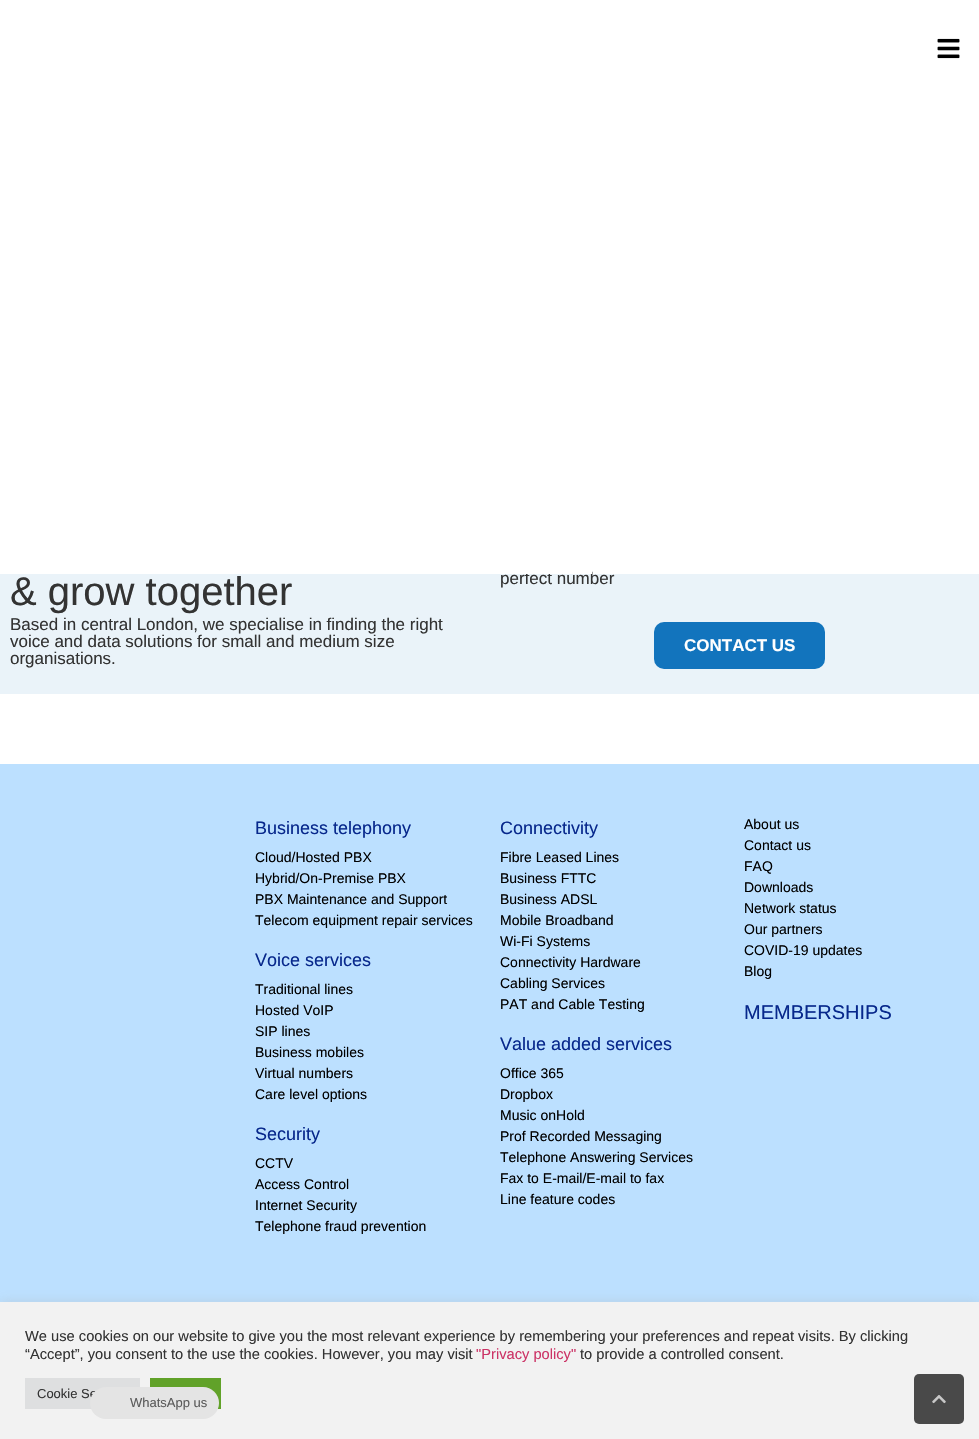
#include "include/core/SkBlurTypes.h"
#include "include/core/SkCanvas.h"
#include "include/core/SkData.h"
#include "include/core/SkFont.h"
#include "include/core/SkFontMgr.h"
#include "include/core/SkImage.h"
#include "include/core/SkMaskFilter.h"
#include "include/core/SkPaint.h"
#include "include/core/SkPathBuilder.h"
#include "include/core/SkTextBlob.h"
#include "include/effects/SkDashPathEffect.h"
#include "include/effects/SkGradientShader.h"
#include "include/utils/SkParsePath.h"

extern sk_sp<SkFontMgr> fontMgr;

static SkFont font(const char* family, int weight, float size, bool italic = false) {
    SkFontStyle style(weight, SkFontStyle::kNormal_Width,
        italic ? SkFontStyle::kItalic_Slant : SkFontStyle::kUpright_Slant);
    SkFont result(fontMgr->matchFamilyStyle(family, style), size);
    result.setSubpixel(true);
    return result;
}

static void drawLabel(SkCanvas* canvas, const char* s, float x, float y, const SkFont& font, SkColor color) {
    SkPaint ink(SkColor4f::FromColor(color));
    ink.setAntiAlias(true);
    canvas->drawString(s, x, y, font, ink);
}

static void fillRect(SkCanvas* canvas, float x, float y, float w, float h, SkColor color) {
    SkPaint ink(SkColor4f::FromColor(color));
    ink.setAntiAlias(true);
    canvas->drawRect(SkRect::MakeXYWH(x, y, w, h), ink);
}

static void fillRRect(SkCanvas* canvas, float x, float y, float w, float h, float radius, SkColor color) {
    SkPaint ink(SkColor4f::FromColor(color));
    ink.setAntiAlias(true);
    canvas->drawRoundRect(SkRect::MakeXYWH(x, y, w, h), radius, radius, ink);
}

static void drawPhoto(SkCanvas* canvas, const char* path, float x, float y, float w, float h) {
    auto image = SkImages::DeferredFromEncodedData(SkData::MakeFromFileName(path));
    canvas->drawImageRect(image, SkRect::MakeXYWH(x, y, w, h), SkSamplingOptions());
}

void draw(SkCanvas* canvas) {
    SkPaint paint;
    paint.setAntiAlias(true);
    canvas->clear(0xFFFFFFFF);
    fillRect(canvas, 0, 574, 979, 120, 0xFFEAF3F9);
    SkFont font1 = font("Liberation Sans", 400, 17);
    drawLabel(canvas, "perfect number", 500, 584, font1, 0xFF333333);
    fillRect(canvas, 525, 571, 67, 3, 0xFFFFFFFF);
    drawPhoto(canvas, "assets/img1.png", 937, 38, 23, 21);
    SkFont font2 = font("Liberation Sans", 400, 40);
    drawLabel(canvas, "& grow together", 10, 605, font2, 0xFF333333);
    drawLabel(canvas, "Based in central London, we specialise in finding the right", 10, 630, font1, 0xFF333333);
    drawLabel(canvas, "voice and data solutions for small and medium size", 10, 647, font1, 0xFF333333);
    drawLabel(canvas, "organisations.", 10, 664, font1, 0xFF333333);
    fillRRect(canvas, 654, 622, 171, 47, 10, 0xFF1274BD);
    SkFont font3 = font("Liberation Sans", 700, 17);
    drawLabel(canvas, "CONTACT US", 684, 651, font3, 0xFFFFFFFF);
    fillRect(canvas, 0, 764, 979, 538, 0xFFBCE0FF);
    SkFont font4 = font("Liberation Sans", 400, 18);
    drawLabel(canvas, "Business telephony", 255, 834, font4, 0xFF07288C);
    SkFont font5 = font("Liberation Sans", 400, 14);
    drawLabel(canvas, "Cloud/Hosted PBX", 255, 862, font5, 0xFF000000);
    drawLabel(canvas, "Hybrid/On-Premise PBX", 255, 883, font5, 0xFF000000);
    drawLabel(canvas, "PBX Maintenance and Support", 255, 904, font5, 0xFF000000);
    drawLabel(canvas, "Telecom equipment repair services", 255, 925, font5, 0xFF000000);
    drawLabel(canvas, "Voice services", 255, 966, font4, 0xFF07288C);
    drawLabel(canvas, "Traditional lines", 255, 994, font5, 0xFF000000);
    drawLabel(canvas, "Hosted VoIP", 255, 1015, font5, 0xFF000000);
    drawLabel(canvas, "SIP lines", 255, 1036, font5, 0xFF000000);
    drawLabel(canvas, "Business mobiles", 255, 1057, font5, 0xFF000000);
    drawLabel(canvas, "Virtual numbers", 255, 1078, font5, 0xFF000000);
    drawLabel(canvas, "Care level options", 255, 1099, font5, 0xFF000000);
    drawLabel(canvas, "Security", 255, 1140, font4, 0xFF07288C);
    drawLabel(canvas, "CCTV", 255, 1168, font5, 0xFF000000);
    drawLabel(canvas, "Access Control", 255, 1189, font5, 0xFF000000);
    drawLabel(canvas, "Internet Security", 255, 1210, font5, 0xFF000000);
    drawLabel(canvas, "Telephone fraud prevention", 255, 1231, font5, 0xFF000000);
    drawLabel(canvas, "Connectivity", 500, 834, font4, 0xFF07288C);
    drawLabel(canvas, "Fibre Leased Lines", 500, 862, font5, 0xFF000000);
    drawLabel(canvas, "Business FTTC", 500, 883, font5, 0xFF000000);
    drawLabel(canvas, "Business ADSL", 500, 904, font5, 0xFF000000);
    drawLabel(canvas, "Mobile Broadband", 500, 925, font5, 0xFF000000);
    drawLabel(canvas, "Wi-Fi Systems", 500, 946, font5, 0xFF000000);
    drawLabel(canvas, "Connectivity Hardware", 500, 967, font5, 0xFF000000);
    drawLabel(canvas, "Cabling Services", 500, 988, font5, 0xFF000000);
    drawLabel(canvas, "PAT and Cable Testing", 500, 1009, font5, 0xFF000000);
    drawLabel(canvas, "Value added services", 500, 1050, font4, 0xFF07288C);
    drawLabel(canvas, "Office 365", 500, 1078, font5, 0xFF000000);
    drawLabel(canvas, "Dropbox", 500, 1099, font5, 0xFF000000);
    drawLabel(canvas, "Music onHold", 500, 1120, font5, 0xFF000000);
    drawLabel(canvas, "Prof Recorded Messaging", 500, 1141, font5, 0xFF000000);
    drawLabel(canvas, "Telephone Answering Services", 500, 1162, font5, 0xFF000000);
    drawLabel(canvas, "Fax to E-mail/E-mail to fax", 500, 1183, font5, 0xFF000000);
    drawLabel(canvas, "Line feature codes", 500, 1204, font5, 0xFF000000);
    drawLabel(canvas, "About us", 744, 829, font5, 0xFF000000);
    drawLabel(canvas, "Contact us", 744, 850, font5, 0xFF000000);
    drawLabel(canvas, "FAQ", 744, 871, font5, 0xFF000000);
    drawLabel(canvas, "Downloads", 744, 892, font5, 0xFF000000);
    drawLabel(canvas, "Network status", 744, 913, font5, 0xFF000000);
    drawLabel(canvas, "Our partners", 744, 934, font5, 0xFF000000);
    drawLabel(canvas, "COVID-19 updates", 744, 955, font5, 0xFF000000);
    drawLabel(canvas, "Blog", 744, 976, font5, 0xFF000000);
    SkFont font6 = font("Liberation Sans", 400, 20);
    drawLabel(canvas, "MEMBERSHIPS", 744, 1019, font6, 0xFF07288C);
    paint.setColor(0x4DACABAB);
    paint.setMaskFilter(SkMaskFilter::MakeBlur(kNormal_SkBlurStyle, 5));
    canvas->drawRect(SkRect::MakeXYWH(0, 1301, 979, 137), paint);
    paint.setMaskFilter(nullptr);
    fillRect(canvas, 0, 1302, 979, 137, 0xFFF2F2F2);
    SkFont font7 = font("Liberation Sans", 400, 14.67f);
    drawLabel(canvas, "We use cookies on our website to give you the most relevant experience by remembering your preferences and repeat visits. By clicking", 25, 1341, font7, 0xFF333333);
    drawLabel(canvas, "“Accept”, you consent to the use the cookies. However, you may visit", 25, 1359, font7, 0xFF333333);
    drawLabel(canvas, "\"Privacy policy\"", 476, 1359, font7, 0xFFCC3366);
    drawLabel(canvas, "to provide a controlled consent.", 580, 1359, font7, 0xFF333333);
    fillRect(canvas, 25, 1378, 115, 31, 0xFFDEDFE0);
    SkFont font8 = font("Liberation Sans", 400, 13);
    drawLabel(canvas, "Cookie Se", 37, 1398, font8, 0xFF333333);
    fillRect(canvas, 150, 1378, 71, 31, 0xFF61A229);
    fillRRect(canvas, 914, 1374, 50, 50, 5, 0xFF494949);
    drawPhoto(canvas, "assets/img2.png", 932, 1395, 14, 9);
    fillRRect(canvas, 90, 1387, 129, 32, 16, 0xFFE4E4E4);
    drawLabel(canvas, "WhatsApp us", 130, 1407, font8, 0xFF5B5B5B);
}
